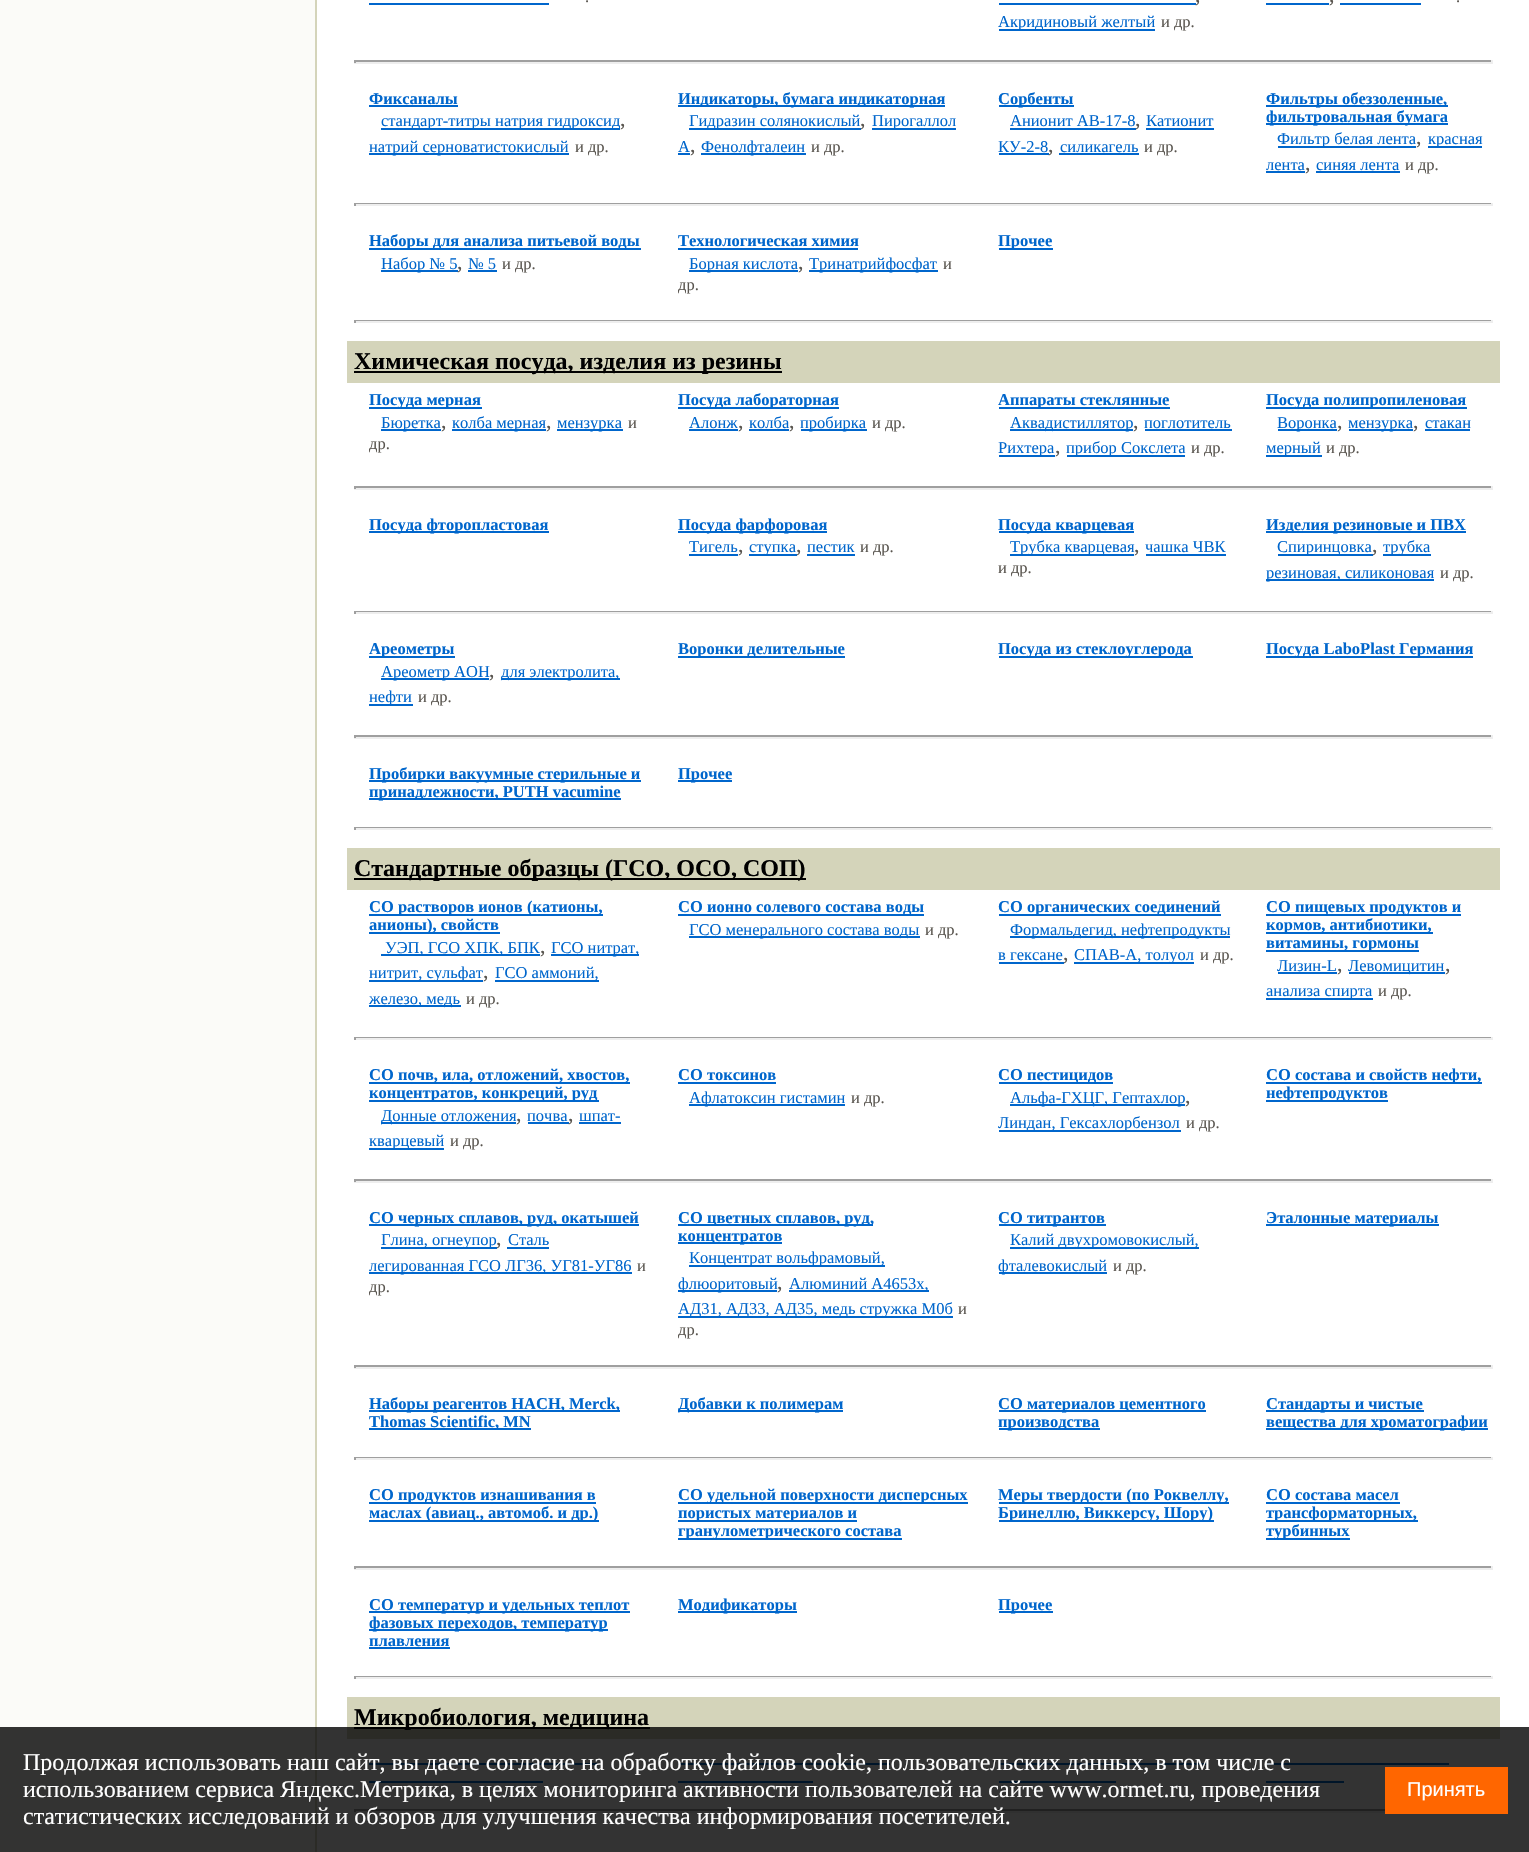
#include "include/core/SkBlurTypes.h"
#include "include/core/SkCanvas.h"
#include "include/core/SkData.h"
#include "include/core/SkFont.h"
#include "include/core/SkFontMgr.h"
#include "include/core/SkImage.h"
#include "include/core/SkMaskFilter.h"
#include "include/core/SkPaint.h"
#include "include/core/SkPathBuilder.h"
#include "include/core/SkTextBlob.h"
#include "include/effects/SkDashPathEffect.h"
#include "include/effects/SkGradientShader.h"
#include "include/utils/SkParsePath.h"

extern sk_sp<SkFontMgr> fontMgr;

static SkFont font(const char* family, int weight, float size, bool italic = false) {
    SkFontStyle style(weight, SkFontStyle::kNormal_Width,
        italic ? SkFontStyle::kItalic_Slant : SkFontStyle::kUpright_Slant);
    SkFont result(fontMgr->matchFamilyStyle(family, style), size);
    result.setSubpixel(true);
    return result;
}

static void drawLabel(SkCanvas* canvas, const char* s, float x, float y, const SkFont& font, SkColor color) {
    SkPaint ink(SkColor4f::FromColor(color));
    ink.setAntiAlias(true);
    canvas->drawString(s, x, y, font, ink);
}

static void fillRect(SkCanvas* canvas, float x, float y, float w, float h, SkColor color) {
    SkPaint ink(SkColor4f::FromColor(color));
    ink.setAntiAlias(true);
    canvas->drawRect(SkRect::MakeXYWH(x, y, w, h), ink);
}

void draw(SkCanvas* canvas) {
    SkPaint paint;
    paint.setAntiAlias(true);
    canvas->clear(0xFFFFFFFF);
    fillRect(canvas, 0, 0, 315, 1852, 0xFFFBFBF8);
    fillRect(canvas, 315, 0, 2, 1852, 0xFFD4D4BA);
    SkFont font1 = font("Liberation Serif", 400, 16.5f);
    drawLabel(canvas, ".", 585, 2, font1, 0xFF59554F);
    fillRect(canvas, 369, 3, 180, 2, 0xFF0066CC);
    fillRect(canvas, 999, 3, 197, 2, 0xFF0066CC);
    SkFont font2 = font("Liberation Serif", 400, 22);
    drawLabel(canvas, ",", 1195, 2, font2, 0xFF59554F);
    fillRect(canvas, 999, 29, 156, 2, 0xFF0066CC);
    drawLabel(canvas, "Акридиновый желтый", 998, 27, font1, 0xFF0066CC);
    drawLabel(canvas, "и др.", 1161, 27, font1, 0xFF59554F);
    drawLabel(canvas, ",", 1329, 2, font2, 0xFF59554F);
    drawLabel(canvas, ".", 1456, 2, font1, 0xFF59554F);
    fillRect(canvas, 1266, 3, 63, 2, 0xFF0066CC);
    fillRect(canvas, 1340, 3, 81, 2, 0xFF0066CC);
    fillRect(canvas, 354, 60, 1139, 2, 0xFF9F9F9F);
    fillRect(canvas, 1491, 60, 2, 3, 0xFFEEEEEE);
    fillRect(canvas, 354, 62, 1139, 2, 0xFFEEEEEE);
    fillRect(canvas, 354, 60, 2, 3, 0xFF9F9F9F);
    SkFont font3 = font("Liberation Serif", 700, 16.5f);
    drawLabel(canvas, "Фиксаналы", 369, 104, font3, 0xFF0066CC);
    fillRect(canvas, 369, 105, 89, 2, 0xFF0066CC);
    fillRect(canvas, 381, 128, 239, 2, 0xFF0066CC);
    drawLabel(canvas, "стандарт-титры натрия гидроксид", 381, 126, font1, 0xFF0066CC);
    drawLabel(canvas, ",", 620, 126, font2, 0xFF59554F);
    fillRect(canvas, 369, 153, 200, 2, 0xFF0066CC);
    drawLabel(canvas, "натрий серноватистокислый", 369, 152, font1, 0xFF0066CC);
    drawLabel(canvas, "и др.", 575, 152, font1, 0xFF59554F);
    fillRect(canvas, 678, 105, 267, 2, 0xFF0066CC);
    drawLabel(canvas, "Индикаторы, бумага индикаторная", 678, 104, font3, 0xFF0066CC);
    fillRect(canvas, 689, 128, 172, 2, 0xFF0066CC);
    drawLabel(canvas, "Гидразин солянокислый", 689, 126, font1, 0xFF0066CC);
    drawLabel(canvas, ",", 860, 126, font2, 0xFF59554F);
    fillRect(canvas, 872, 128, 84, 2, 0xFF0066CC);
    drawLabel(canvas, "Пирогаллол", 872, 126, font1, 0xFF0066CC);
    drawLabel(canvas, "А", 678, 152, font1, 0xFF0066CC);
    fillRect(canvas, 678, 153, 12, 2, 0xFF0066CC);
    drawLabel(canvas, ",", 690, 152, font2, 0xFF59554F);
    fillRect(canvas, 701, 153, 105, 2, 0xFF0066CC);
    drawLabel(canvas, "Фенолфталеин", 701, 152, font1, 0xFF0066CC);
    drawLabel(canvas, "и др.", 811, 152, font1, 0xFF59554F);
    fillRect(canvas, 999, 105, 75, 2, 0xFF0066CC);
    drawLabel(canvas, "Сорбенты", 998, 104, font3, 0xFF0066CC);
    drawLabel(canvas, "Анионит АВ-17-8", 1010, 126, font1, 0xFF0066CC);
    fillRect(canvas, 1010, 128, 126, 2, 0xFF0066CC);
    drawLabel(canvas, ",", 1135, 126, font2, 0xFF59554F);
    drawLabel(canvas, "Катионит", 1146, 126, font1, 0xFF0066CC);
    fillRect(canvas, 1146, 128, 68, 2, 0xFF0066CC);
    drawLabel(canvas, "КУ-2-8", 998, 152, font1, 0xFF0066CC);
    fillRect(canvas, 999, 153, 50, 2, 0xFF0066CC);
    drawLabel(canvas, ",", 1048, 152, font2, 0xFF59554F);
    drawLabel(canvas, "силикагель", 1060, 152, font1, 0xFF0066CC);
    fillRect(canvas, 1059, 153, 80, 2, 0xFF0066CC);
    drawLabel(canvas, "и др.", 1144, 152, font1, 0xFF59554F);
    fillRect(canvas, 1266, 105, 182, 2, 0xFF0066CC);
    drawLabel(canvas, "Фильтры обеззоленные,", 1266, 104, font3, 0xFF0066CC);
    fillRect(canvas, 1266, 123, 182, 2, 0xFF0066CC);
    drawLabel(canvas, "фильтровальная бумага", 1266, 122, font3, 0xFF0066CC);
    fillRect(canvas, 1278, 146, 138, 2, 0xFF0066CC);
    drawLabel(canvas, "Фильтр белая лента", 1277, 144, font1, 0xFF0066CC);
    drawLabel(canvas, ",", 1416, 144, font2, 0xFF59554F);
    fillRect(canvas, 1428, 146, 54, 2, 0xFF0066CC);
    drawLabel(canvas, "красная", 1428, 144, font1, 0xFF0066CC);
    drawLabel(canvas, "лента", 1266, 170, font1, 0xFF0066CC);
    fillRect(canvas, 1266, 171, 39, 2, 0xFF0066CC);
    drawLabel(canvas, ",", 1305, 170, font2, 0xFF59554F);
    drawLabel(canvas, "синяя лента", 1316, 170, font1, 0xFF0066CC);
    fillRect(canvas, 1316, 171, 84, 2, 0xFF0066CC);
    drawLabel(canvas, "и др.", 1405, 170, font1, 0xFF59554F);
    fillRect(canvas, 354, 203, 1139, 1, 0xFF9F9F9F);
    fillRect(canvas, 1491, 203, 2, 3, 0xFFEEEEEE);
    fillRect(canvas, 354, 204, 1139, 2, 0xFFEEEEEE);
    fillRect(canvas, 354, 203, 2, 3, 0xFF9F9F9F);
    fillRect(canvas, 369, 248, 272, 2, 0xFF0066CC);
    drawLabel(canvas, "Наборы для анализа питьевой воды", 369, 246, font3, 0xFF0066CC);
    fillRect(canvas, 381, 270, 77, 2, 0xFF0066CC);
    drawLabel(canvas, "Набор № 5", 381, 269, font1, 0xFF0066CC);
    drawLabel(canvas, ",", 457, 269, font2, 0xFF59554F);
    drawLabel(canvas, "№ 5", 468, 269, font1, 0xFF0066CC);
    fillRect(canvas, 468, 270, 29, 2, 0xFF0066CC);
    drawLabel(canvas, "и др.", 502, 269, font1, 0xFF59554F);
    drawLabel(canvas, "Технологическая химия", 678, 246, font3, 0xFF0066CC);
    fillRect(canvas, 678, 248, 180, 2, 0xFF0066CC);
    fillRect(canvas, 689, 270, 109, 2, 0xFF0066CC);
    drawLabel(canvas, "Борная кислота", 689, 269, font1, 0xFF0066CC);
    drawLabel(canvas, ",", 798, 269, font2, 0xFF59554F);
    fillRect(canvas, 809, 270, 129, 2, 0xFF0066CC);
    drawLabel(canvas, "Тринатрийфосфат", 809, 269, font1, 0xFF0066CC);
    drawLabel(canvas, "и", 943, 269, font1, 0xFF59554F);
    drawLabel(canvas, "др.", 678, 290, font1, 0xFF59554F);
    fillRect(canvas, 999, 248, 54, 2, 0xFF0066CC);
    drawLabel(canvas, "Прочее", 998, 246, font3, 0xFF0066CC);
    fillRect(canvas, 354, 320, 1139, 1, 0xFF9F9F9F);
    fillRect(canvas, 1491, 320, 2, 3, 0xFFEEEEEE);
    fillRect(canvas, 354, 321, 1139, 2, 0xFFEEEEEE);
    fillRect(canvas, 354, 320, 2, 3, 0xFF9F9F9F);
    fillRect(canvas, 347, 341, 1153, 42, 0xFFD4D4BA);
    fillRect(canvas, 354, 371, 428, 2, 0xFF000000);
    SkFont font4 = font("Liberation Serif", 700, 24);
    drawLabel(canvas, "Химическая посуда, изделия из резины", 354, 369, font4, 0xFF000000);
    fillRect(canvas, 369, 407, 113, 2, 0xFF0066CC);
    drawLabel(canvas, "Посуда мерная", 369, 405, font3, 0xFF0066CC);
    fillRect(canvas, 381, 429, 60, 2, 0xFF0066CC);
    drawLabel(canvas, "Бюретка", 381, 428, font1, 0xFF0066CC);
    drawLabel(canvas, ",", 441, 428, font2, 0xFF59554F);
    fillRect(canvas, 452, 429, 94, 2, 0xFF0066CC);
    drawLabel(canvas, "колба мерная", 452, 428, font1, 0xFF0066CC);
    drawLabel(canvas, ",", 546, 428, font2, 0xFF59554F);
    fillRect(canvas, 557, 429, 66, 2, 0xFF0066CC);
    drawLabel(canvas, "мензурка", 557, 428, font1, 0xFF0066CC);
    drawLabel(canvas, "и", 628, 428, font1, 0xFF59554F);
    drawLabel(canvas, "др.", 369, 449, font1, 0xFF59554F);
    fillRect(canvas, 678, 407, 161, 2, 0xFF0066CC);
    drawLabel(canvas, "Посуда лабораторная", 678, 405, font3, 0xFF0066CC);
    drawLabel(canvas, "Алонж", 689, 428, font1, 0xFF0066CC);
    fillRect(canvas, 689, 429, 49, 2, 0xFF0066CC);
    drawLabel(canvas, ",", 738, 428, font2, 0xFF59554F);
    drawLabel(canvas, "колба", 749, 428, font1, 0xFF0066CC);
    fillRect(canvas, 749, 429, 40, 2, 0xFF0066CC);
    drawLabel(canvas, ",", 789, 428, font2, 0xFF59554F);
    fillRect(canvas, 801, 429, 66, 2, 0xFF0066CC);
    drawLabel(canvas, "пробирка", 800, 428, font1, 0xFF0066CC);
    drawLabel(canvas, "и др.", 872, 428, font1, 0xFF59554F);
    fillRect(canvas, 999, 407, 171, 2, 0xFF0066CC);
    drawLabel(canvas, "Аппараты стеклянные", 998, 405, font3, 0xFF0066CC);
    fillRect(canvas, 1010, 429, 123, 2, 0xFF0066CC);
    drawLabel(canvas, "Аквадистиллятор", 1010, 428, font1, 0xFF0066CC);
    drawLabel(canvas, ",", 1133, 428, font2, 0xFF59554F);
    drawLabel(canvas, "поглотитель", 1144, 428, font1, 0xFF0066CC);
    fillRect(canvas, 1145, 429, 87, 2, 0xFF0066CC);
    fillRect(canvas, 999, 455, 56, 2, 0xFF0066CC);
    drawLabel(canvas, "Рихтера", 998, 453, font1, 0xFF0066CC);
    drawLabel(canvas, ",", 1055, 453, font2, 0xFF59554F);
    fillRect(canvas, 1067, 455, 118, 2, 0xFF0066CC);
    drawLabel(canvas, "прибор Сокслета", 1066, 453, font1, 0xFF0066CC);
    drawLabel(canvas, "и др.", 1191, 453, font1, 0xFF59554F);
    fillRect(canvas, 1266, 407, 201, 2, 0xFF0066CC);
    drawLabel(canvas, "Посуда полипропиленовая", 1266, 405, font3, 0xFF0066CC);
    fillRect(canvas, 1278, 429, 59, 2, 0xFF0066CC);
    drawLabel(canvas, "Воронка", 1277, 428, font1, 0xFF0066CC);
    drawLabel(canvas, ",", 1337, 428, font2, 0xFF59554F);
    fillRect(canvas, 1349, 429, 64, 2, 0xFF0066CC);
    drawLabel(canvas, "мензурка", 1348, 428, font1, 0xFF0066CC);
    drawLabel(canvas, ",", 1413, 428, font2, 0xFF59554F);
    drawLabel(canvas, "стакан", 1425, 428, font1, 0xFF0066CC);
    fillRect(canvas, 1425, 429, 45, 2, 0xFF0066CC);
    fillRect(canvas, 1266, 455, 56, 2, 0xFF0066CC);
    drawLabel(canvas, "мерный", 1266, 453, font1, 0xFF0066CC);
    drawLabel(canvas, "и др.", 1326, 453, font1, 0xFF59554F);
    fillRect(canvas, 354, 486, 1139, 2, 0xFF9F9F9F);
    fillRect(canvas, 1491, 486, 2, 3, 0xFFEEEEEE);
    fillRect(canvas, 354, 488, 1139, 2, 0xFFEEEEEE);
    fillRect(canvas, 354, 486, 2, 3, 0xFF9F9F9F);
    fillRect(canvas, 369, 531, 180, 2, 0xFF0066CC);
    drawLabel(canvas, "Посуда фторопластовая", 369, 530, font3, 0xFF0066CC);
    fillRect(canvas, 678, 531, 149, 2, 0xFF0066CC);
    drawLabel(canvas, "Посуда фарфоровая", 678, 530, font3, 0xFF0066CC);
    drawLabel(canvas, "Тигель", 689, 552, font1, 0xFF0066CC);
    fillRect(canvas, 689, 554, 49, 2, 0xFF0066CC);
    drawLabel(canvas, ",", 738, 552, font2, 0xFF59554F);
    fillRect(canvas, 749, 554, 48, 2, 0xFF0066CC);
    drawLabel(canvas, "ступка", 749, 552, font1, 0xFF0066CC);
    drawLabel(canvas, ",", 796, 552, font2, 0xFF59554F);
    drawLabel(canvas, "пестик", 807, 552, font1, 0xFF0066CC);
    fillRect(canvas, 807, 554, 48, 2, 0xFF0066CC);
    drawLabel(canvas, "и др.", 860, 552, font1, 0xFF59554F);
    fillRect(canvas, 999, 531, 135, 2, 0xFF0066CC);
    drawLabel(canvas, "Посуда кварцевая", 998, 530, font3, 0xFF0066CC);
    fillRect(canvas, 1010, 554, 124, 2, 0xFF0066CC);
    drawLabel(canvas, "Трубка кварцевая", 1010, 552, font1, 0xFF0066CC);
    drawLabel(canvas, ",", 1134, 552, font2, 0xFF59554F);
    drawLabel(canvas, "чашка ЧВК", 1145, 552, font1, 0xFF0066CC);
    fillRect(canvas, 1146, 554, 80, 2, 0xFF0066CC);
    drawLabel(canvas, "и др.", 998, 573, font1, 0xFF59554F);
    fillRect(canvas, 1266, 531, 200, 2, 0xFF0066CC);
    drawLabel(canvas, "Изделия резиновые и ПВХ", 1266, 530, font3, 0xFF0066CC);
    fillRect(canvas, 1278, 554, 95, 2, 0xFF0066CC);
    drawLabel(canvas, "Спиринцовка", 1277, 552, font1, 0xFF0066CC);
    drawLabel(canvas, ",", 1372, 552, font2, 0xFF59554F);
    fillRect(canvas, 1383, 554, 48, 2, 0xFF0066CC);
    drawLabel(canvas, "трубка", 1383, 552, font1, 0xFF0066CC);
    fillRect(canvas, 1266, 579, 168, 2, 0xFF0066CC);
    drawLabel(canvas, "резиновая, силиконовая", 1266, 578, font1, 0xFF0066CC);
    drawLabel(canvas, "и др.", 1440, 578, font1, 0xFF59554F);
    fillRect(canvas, 354, 611, 1139, 1, 0xFF9F9F9F);
    fillRect(canvas, 1491, 611, 2, 3, 0xFFEEEEEE);
    fillRect(canvas, 354, 612, 1139, 2, 0xFFEEEEEE);
    fillRect(canvas, 354, 611, 2, 3, 0xFF9F9F9F);
    fillRect(canvas, 369, 656, 86, 2, 0xFF0066CC);
    drawLabel(canvas, "Ареометры", 369, 654, font3, 0xFF0066CC);
    fillRect(canvas, 381, 678, 108, 2, 0xFF0066CC);
    drawLabel(canvas, "Ареометр АОН", 381, 677, font1, 0xFF0066CC);
    drawLabel(canvas, ",", 489, 677, font2, 0xFF59554F);
    fillRect(canvas, 501, 678, 119, 2, 0xFF0066CC);
    drawLabel(canvas, "для электролита,", 501, 677, font1, 0xFF0066CC);
    fillRect(canvas, 369, 704, 44, 2, 0xFF0066CC);
    drawLabel(canvas, "нефти", 369, 702, font1, 0xFF0066CC);
    drawLabel(canvas, "и др.", 418, 702, font1, 0xFF59554F);
    fillRect(canvas, 678, 656, 167, 2, 0xFF0066CC);
    drawLabel(canvas, "Воронки делительные", 678, 654, font3, 0xFF0066CC);
    fillRect(canvas, 999, 656, 194, 2, 0xFF0066CC);
    drawLabel(canvas, "Посуда из стеклоуглерода", 998, 654, font3, 0xFF0066CC);
    fillRect(canvas, 1266, 656, 207, 2, 0xFF0066CC);
    drawLabel(canvas, "Посуда LaboPlast Германия", 1266, 654, font3, 0xFF0066CC);
    fillRect(canvas, 354, 735, 1139, 2, 0xFF9F9F9F);
    fillRect(canvas, 1491, 735, 2, 3, 0xFFEEEEEE);
    fillRect(canvas, 354, 737, 1139, 2, 0xFFEEEEEE);
    fillRect(canvas, 354, 735, 2, 3, 0xFF9F9F9F);
    fillRect(canvas, 369, 780, 272, 2, 0xFF0066CC);
    drawLabel(canvas, "Пробирки вакуумные стерильные и", 369, 779, font3, 0xFF0066CC);
    fillRect(canvas, 369, 798, 252, 2, 0xFF0066CC);
    drawLabel(canvas, "принадлежности, PUTH vacumine", 369, 797, font3, 0xFF0066CC);
    fillRect(canvas, 678, 780, 54, 2, 0xFF0066CC);
    drawLabel(canvas, "Прочее", 678, 779, font3, 0xFF0066CC);
    fillRect(canvas, 354, 827, 1139, 1, 0xFF9F9F9F);
    fillRect(canvas, 1491, 827, 2, 3, 0xFFEEEEEE);
    fillRect(canvas, 354, 828, 1139, 2, 0xFFEEEEEE);
    fillRect(canvas, 354, 827, 2, 3, 0xFF9F9F9F);
    fillRect(canvas, 347, 848, 1153, 42, 0xFFD4D4BA);
    fillRect(canvas, 354, 878, 452, 2, 0xFF000000);
    drawLabel(canvas, "Cтандартные образцы (ГСО, ОСО, СОП)", 354, 876, font4, 0xFF000000);
    fillRect(canvas, 369, 914, 234, 2, 0xFF0066CC);
    drawLabel(canvas, "СО растворов ионов (катионы,", 369, 912, font3, 0xFF0066CC);
    fillRect(canvas, 369, 932, 131, 2, 0xFF0066CC);
    drawLabel(canvas, "анионы), свойств", 369, 930, font3, 0xFF0066CC);
    fillRect(canvas, 381, 954, 159, 2, 0xFF0066CC);
    drawLabel(canvas, "УЭП, ГСО ХПК, БПК", 385, 953, font1, 0xFF0066CC);
    drawLabel(canvas, ",", 540, 953, font2, 0xFF59554F);
    fillRect(canvas, 551, 954, 88, 2, 0xFF0066CC);
    drawLabel(canvas, "ГСО нитрат,", 551, 953, font1, 0xFF0066CC);
    fillRect(canvas, 369, 980, 114, 2, 0xFF0066CC);
    drawLabel(canvas, "нитрит, сульфат", 369, 978, font1, 0xFF0066CC);
    drawLabel(canvas, ",", 483, 978, font2, 0xFF59554F);
    fillRect(canvas, 495, 980, 104, 2, 0xFF0066CC);
    drawLabel(canvas, "ГСО аммоний,", 495, 978, font1, 0xFF0066CC);
    fillRect(canvas, 369, 1005, 92, 2, 0xFF0066CC);
    drawLabel(canvas, "железо, медь", 369, 1004, font1, 0xFF0066CC);
    drawLabel(canvas, "и др.", 466, 1004, font1, 0xFF59554F);
    fillRect(canvas, 678, 914, 246, 2, 0xFF0066CC);
    drawLabel(canvas, "СО ионно солевого состава воды", 678, 912, font3, 0xFF0066CC);
    fillRect(canvas, 689, 936, 231, 2, 0xFF0066CC);
    drawLabel(canvas, "ГСО менерального состава воды", 689, 935, font1, 0xFF0066CC);
    drawLabel(canvas, "и др.", 925, 935, font1, 0xFF59554F);
    fillRect(canvas, 999, 914, 222, 2, 0xFF0066CC);
    drawLabel(canvas, "СО органических соединений", 998, 912, font3, 0xFF0066CC);
    fillRect(canvas, 1010, 936, 220, 2, 0xFF0066CC);
    drawLabel(canvas, "Формальдегид, нефтепродукты", 1010, 935, font1, 0xFF0066CC);
    drawLabel(canvas, "в гексане", 998, 960, font1, 0xFF0066CC);
    fillRect(canvas, 999, 962, 65, 2, 0xFF0066CC);
    drawLabel(canvas, ",", 1063, 960, font2, 0xFF59554F);
    fillRect(canvas, 1074, 962, 120, 2, 0xFF0066CC);
    drawLabel(canvas, "СПАВ-А, толуол", 1074, 960, font1, 0xFF0066CC);
    drawLabel(canvas, "и др.", 1200, 960, font1, 0xFF59554F);
    fillRect(canvas, 1266, 914, 195, 2, 0xFF0066CC);
    drawLabel(canvas, "СО пищевых продуктов и", 1266, 912, font3, 0xFF0066CC);
    fillRect(canvas, 1266, 932, 167, 2, 0xFF0066CC);
    drawLabel(canvas, "кормов, антибиотики,", 1266, 930, font3, 0xFF0066CC);
    fillRect(canvas, 1266, 950, 153, 2, 0xFF0066CC);
    drawLabel(canvas, "витамины, гормоны", 1266, 948, font3, 0xFF0066CC);
    drawLabel(canvas, "Лизин-L", 1277, 971, font1, 0xFF0066CC);
    fillRect(canvas, 1278, 972, 59, 2, 0xFF0066CC);
    drawLabel(canvas, ",", 1337, 971, font2, 0xFF59554F);
    fillRect(canvas, 1349, 972, 96, 2, 0xFF0066CC);
    drawLabel(canvas, "Левомицитин", 1348, 971, font1, 0xFF0066CC);
    drawLabel(canvas, ",", 1445, 971, font2, 0xFF59554F);
    fillRect(canvas, 1266, 998, 107, 2, 0xFF0066CC);
    drawLabel(canvas, "анализа спирта", 1266, 996, font1, 0xFF0066CC);
    drawLabel(canvas, "и др.", 1378, 996, font1, 0xFF59554F);
    fillRect(canvas, 354, 1037, 1139, 1, 0xFF9F9F9F);
    fillRect(canvas, 1491, 1037, 2, 3, 0xFFEEEEEE);
    fillRect(canvas, 354, 1038, 1139, 2, 0xFFEEEEEE);
    fillRect(canvas, 354, 1037, 2, 3, 0xFF9F9F9F);
    fillRect(canvas, 369, 1082, 261, 2, 0xFF0066CC);
    drawLabel(canvas, "СО почв, ила, отложений, хвостов,", 369, 1080, font3, 0xFF0066CC);
    fillRect(canvas, 369, 1100, 230, 2, 0xFF0066CC);
    drawLabel(canvas, "концентратов, конкреций, руд", 369, 1098, font3, 0xFF0066CC);
    fillRect(canvas, 381, 1122, 135, 2, 0xFF0066CC);
    drawLabel(canvas, "Донные отложения", 381, 1121, font1, 0xFF0066CC);
    drawLabel(canvas, ",", 516, 1121, font2, 0xFF59554F);
    drawLabel(canvas, "почва", 527, 1121, font1, 0xFF0066CC);
    fillRect(canvas, 528, 1122, 41, 2, 0xFF0066CC);
    drawLabel(canvas, ",", 568, 1121, font2, 0xFF59554F);
    drawLabel(canvas, "шпат-", 579, 1121, font1, 0xFF0066CC);
    fillRect(canvas, 579, 1122, 42, 2, 0xFF0066CC);
    fillRect(canvas, 369, 1148, 75, 2, 0xFF0066CC);
    drawLabel(canvas, "кварцевый", 369, 1146, font1, 0xFF0066CC);
    drawLabel(canvas, "и др.", 450, 1146, font1, 0xFF59554F);
    drawLabel(canvas, "СО токсинов", 678, 1080, font3, 0xFF0066CC);
    fillRect(canvas, 678, 1082, 98, 2, 0xFF0066CC);
    fillRect(canvas, 689, 1104, 156, 2, 0xFF0066CC);
    drawLabel(canvas, "Афлатоксин гистамин", 689, 1103, font1, 0xFF0066CC);
    drawLabel(canvas, "и др.", 851, 1103, font1, 0xFF59554F);
    fillRect(canvas, 999, 1082, 114, 2, 0xFF0066CC);
    drawLabel(canvas, "СО пестицидов", 998, 1080, font3, 0xFF0066CC);
    fillRect(canvas, 1010, 1104, 175, 2, 0xFF0066CC);
    drawLabel(canvas, "Альфа-ГХЦГ, Гептахлор", 1010, 1103, font1, 0xFF0066CC);
    drawLabel(canvas, ",", 1185, 1103, font2, 0xFF59554F);
    fillRect(canvas, 999, 1130, 182, 2, 0xFF0066CC);
    drawLabel(canvas, "Линдан, Гексахлорбензол", 998, 1128, font1, 0xFF0066CC);
    drawLabel(canvas, "и др.", 1186, 1128, font1, 0xFF59554F);
    fillRect(canvas, 1266, 1082, 216, 2, 0xFF0066CC);
    drawLabel(canvas, "СО состава и свойств нефти,", 1266, 1080, font3, 0xFF0066CC);
    fillRect(canvas, 1266, 1100, 122, 2, 0xFF0066CC);
    drawLabel(canvas, "нефтепродуктов", 1266, 1098, font3, 0xFF0066CC);
    fillRect(canvas, 354, 1179, 1139, 2, 0xFF9F9F9F);
    fillRect(canvas, 1491, 1179, 2, 3, 0xFFEEEEEE);
    fillRect(canvas, 354, 1181, 1139, 2, 0xFFEEEEEE);
    fillRect(canvas, 354, 1179, 2, 3, 0xFF9F9F9F);
    fillRect(canvas, 369, 1224, 270, 2, 0xFF0066CC);
    drawLabel(canvas, "СО черных сплавов, руд, окатышей", 369, 1223, font3, 0xFF0066CC);
    fillRect(canvas, 381, 1247, 116, 2, 0xFF0066CC);
    drawLabel(canvas, "Глина, огнеупор", 381, 1245, font1, 0xFF0066CC);
    drawLabel(canvas, ",", 496, 1245, font2, 0xFF59554F);
    drawLabel(canvas, "Сталь", 508, 1245, font1, 0xFF0066CC);
    fillRect(canvas, 507, 1247, 42, 2, 0xFF0066CC);
    fillRect(canvas, 369, 1272, 263, 2, 0xFF0066CC);
    drawLabel(canvas, "легированная ГСО ЛГ36, УГ81-УГ86", 369, 1271, font1, 0xFF0066CC);
    drawLabel(canvas, "и", 637, 1271, font1, 0xFF59554F);
    drawLabel(canvas, "др.", 369, 1292, font1, 0xFF59554F);
    fillRect(canvas, 678, 1224, 195, 2, 0xFF0066CC);
    drawLabel(canvas, "СО цветных сплавов, руд,", 678, 1223, font3, 0xFF0066CC);
    fillRect(canvas, 678, 1242, 104, 2, 0xFF0066CC);
    drawLabel(canvas, "концентратов", 678, 1241, font3, 0xFF0066CC);
    fillRect(canvas, 689, 1265, 196, 2, 0xFF0066CC);
    drawLabel(canvas, "Концентрат вольфрамовый,", 689, 1263, font1, 0xFF0066CC);
    fillRect(canvas, 678, 1290, 99, 2, 0xFF0066CC);
    drawLabel(canvas, "флюоритовый", 678, 1289, font1, 0xFF0066CC);
    drawLabel(canvas, ",", 777, 1289, font2, 0xFF59554F);
    fillRect(canvas, 789, 1290, 140, 2, 0xFF0066CC);
    drawLabel(canvas, "Алюминий А4653х,", 789, 1289, font1, 0xFF0066CC);
    fillRect(canvas, 678, 1316, 275, 2, 0xFF0066CC);
    drawLabel(canvas, "АД31, АД33, АД35, медь стружка М0б", 678, 1314, font1, 0xFF0066CC);
    drawLabel(canvas, "и", 958, 1314, font1, 0xFF59554F);
    drawLabel(canvas, "др.", 678, 1335, font1, 0xFF59554F);
    fillRect(canvas, 999, 1224, 107, 2, 0xFF0066CC);
    drawLabel(canvas, "СО титрантов", 998, 1223, font3, 0xFF0066CC);
    fillRect(canvas, 1010, 1247, 189, 2, 0xFF0066CC);
    drawLabel(canvas, "Калий двухромовокислый,", 1010, 1245, font1, 0xFF0066CC);
    fillRect(canvas, 999, 1272, 108, 2, 0xFF0066CC);
    drawLabel(canvas, "фталевокислый", 998, 1271, font1, 0xFF0066CC);
    drawLabel(canvas, "и др.", 1113, 1271, font1, 0xFF59554F);
    fillRect(canvas, 1266, 1224, 173, 2, 0xFF0066CC);
    drawLabel(canvas, "Эталонные материалы", 1266, 1223, font3, 0xFF0066CC);
    fillRect(canvas, 354, 1365, 1139, 2, 0xFF9F9F9F);
    fillRect(canvas, 1491, 1365, 2, 3, 0xFFEEEEEE);
    fillRect(canvas, 354, 1367, 1139, 2, 0xFFEEEEEE);
    fillRect(canvas, 354, 1365, 2, 3, 0xFF9F9F9F);
    fillRect(canvas, 369, 1410, 251, 2, 0xFF0066CC);
    drawLabel(canvas, "Наборы реагентов HACH, Merck,", 369, 1409, font3, 0xFF0066CC);
    fillRect(canvas, 369, 1428, 162, 2, 0xFF0066CC);
    drawLabel(canvas, "Thomas Scientific, MN", 369, 1427, font3, 0xFF0066CC);
    fillRect(canvas, 678, 1410, 165, 2, 0xFF0066CC);
    drawLabel(canvas, "Добавки к полимерам", 678, 1409, font3, 0xFF0066CC);
    fillRect(canvas, 999, 1410, 207, 2, 0xFF0066CC);
    drawLabel(canvas, "СО материалов цементного", 998, 1409, font3, 0xFF0066CC);
    fillRect(canvas, 999, 1428, 101, 2, 0xFF0066CC);
    drawLabel(canvas, "производства", 998, 1427, font3, 0xFF0066CC);
    fillRect(canvas, 1266, 1410, 158, 2, 0xFF0066CC);
    drawLabel(canvas, "Стандарты и чистые", 1266, 1409, font3, 0xFF0066CC);
    fillRect(canvas, 1266, 1428, 222, 2, 0xFF0066CC);
    drawLabel(canvas, "вещества для хроматографии", 1266, 1427, font3, 0xFF0066CC);
    fillRect(canvas, 354, 1457, 1139, 1, 0xFF9F9F9F);
    fillRect(canvas, 1491, 1457, 2, 3, 0xFFEEEEEE);
    fillRect(canvas, 354, 1458, 1139, 2, 0xFFEEEEEE);
    fillRect(canvas, 354, 1457, 2, 3, 0xFF9F9F9F);
    fillRect(canvas, 369, 1502, 227, 2, 0xFF0066CC);
    drawLabel(canvas, "СО продуктов изнашивания в", 369, 1500, font3, 0xFF0066CC);
    fillRect(canvas, 369, 1520, 230, 2, 0xFF0066CC);
    drawLabel(canvas, "маслах (авиац., автомоб. и др.)", 369, 1518, font3, 0xFF0066CC);
    fillRect(canvas, 678, 1502, 290, 2, 0xFF0066CC);
    drawLabel(canvas, "СО удельной поверхности дисперсных", 678, 1500, font3, 0xFF0066CC);
    fillRect(canvas, 678, 1520, 179, 2, 0xFF0066CC);
    drawLabel(canvas, "пористых материалов и", 678, 1518, font3, 0xFF0066CC);
    fillRect(canvas, 678, 1538, 224, 2, 0xFF0066CC);
    drawLabel(canvas, "гранулометрического состава", 678, 1536, font3, 0xFF0066CC);
    fillRect(canvas, 999, 1502, 230, 2, 0xFF0066CC);
    drawLabel(canvas, "Меры твердости (по Роквеллу,", 998, 1500, font3, 0xFF0066CC);
    fillRect(canvas, 999, 1520, 215, 2, 0xFF0066CC);
    drawLabel(canvas, "Бринеллю, Виккерсу, Шору)", 998, 1518, font3, 0xFF0066CC);
    drawLabel(canvas, "СО состава масел", 1266, 1500, font3, 0xFF0066CC);
    fillRect(canvas, 1266, 1502, 134, 2, 0xFF0066CC);
    fillRect(canvas, 1266, 1520, 152, 2, 0xFF0066CC);
    drawLabel(canvas, "трансформаторных,", 1266, 1518, font3, 0xFF0066CC);
    fillRect(canvas, 1266, 1538, 84, 2, 0xFF0066CC);
    drawLabel(canvas, "турбинных", 1266, 1536, font3, 0xFF0066CC);
    fillRect(canvas, 354, 1566, 1139, 2, 0xFF9F9F9F);
    fillRect(canvas, 1491, 1566, 2, 3, 0xFFEEEEEE);
    fillRect(canvas, 354, 1568, 1139, 2, 0xFFEEEEEE);
    fillRect(canvas, 354, 1566, 2, 3, 0xFF9F9F9F);
    fillRect(canvas, 369, 1611, 261, 2, 0xFF0066CC);
    drawLabel(canvas, "СО температур и удельных теплот", 369, 1610, font3, 0xFF0066CC);
    fillRect(canvas, 369, 1629, 239, 2, 0xFF0066CC);
    drawLabel(canvas, "фазовых переходов, температур", 369, 1628, font3, 0xFF0066CC);
    drawLabel(canvas, "плавления", 369, 1646, font3, 0xFF0066CC);
    fillRect(canvas, 369, 1647, 81, 2, 0xFF0066CC);
    fillRect(canvas, 678, 1611, 119, 2, 0xFF0066CC);
    drawLabel(canvas, "Модификаторы", 678, 1610, font3, 0xFF0066CC);
    fillRect(canvas, 999, 1611, 54, 2, 0xFF0066CC);
    drawLabel(canvas, "Прочее", 998, 1610, font3, 0xFF0066CC);
    fillRect(canvas, 354, 1676, 1139, 1, 0xFF9F9F9F);
    fillRect(canvas, 1491, 1676, 2, 3, 0xFFEEEEEE);
    fillRect(canvas, 354, 1677, 1139, 2, 0xFFEEEEEE);
    fillRect(canvas, 354, 1676, 2, 3, 0xFF9F9F9F);
    fillRect(canvas, 347, 1697, 1153, 42, 0xFFD4D4BA);
    fillRect(canvas, 354, 1727, 296, 2, 0xFF000000);
    drawLabel(canvas, "Микробиология, медицина", 354, 1725, font4, 0xFF000000);
    fillRect(canvas, 369, 1763, 228, 2, 0xFF0066CC);
    fillRect(canvas, 369, 1781, 174, 2, 0xFF0066CC);
    fillRect(canvas, 678, 1763, 212, 2, 0xFF0066CC);
    fillRect(canvas, 678, 1781, 135, 2, 0xFF0066CC);
    fillRect(canvas, 999, 1763, 209, 2, 0xFF0066CC);
    fillRect(canvas, 999, 1781, 117, 2, 0xFF0066CC);
    fillRect(canvas, 1266, 1763, 183, 2, 0xFF0066CC);
    fillRect(canvas, 1266, 1781, 78, 2, 0xFF0066CC);
    fillRect(canvas, 354, 1809, 1031, 2, 0xFF9F9F9F);
    fillRect(canvas, 354, 1811, 1031, 2, 0xFFEEEEEE);
    fillRect(canvas, 354, 1809, 2, 3, 0xFF9F9F9F);
    fillRect(canvas, 0, 1727, 1529, 125, 0xCC000000);
    SkFont font5 = font("Liberation Serif", 400, 24);
    drawLabel(canvas, "Продолжая использовать наш сайт, вы даете согласие на обработку файлов cookie, пользовательских данных, в том числе с", 23, 1770, font5, 0xFFFFFFFF);
    drawLabel(canvas, "использованием сервиса Яндекс.Метрика, в целях мониторинга активности пользователей на сайте www.ormet.ru, проведения", 23, 1797, font5, 0xFFFFFFFF);
    drawLabel(canvas, "статистических исследований и обзоров для улучшения качества информирования посетителей.", 23, 1824, font5, 0xFFFFFFFF);
    fillRect(canvas, 1385, 1767, 123, 47, 0xFFFF6600);
    SkFont font6 = font("Liberation Sans", 400, 20);
    drawLabel(canvas, "Принять", 1407, 1796, font6, 0xFFFFFFFF);
}
